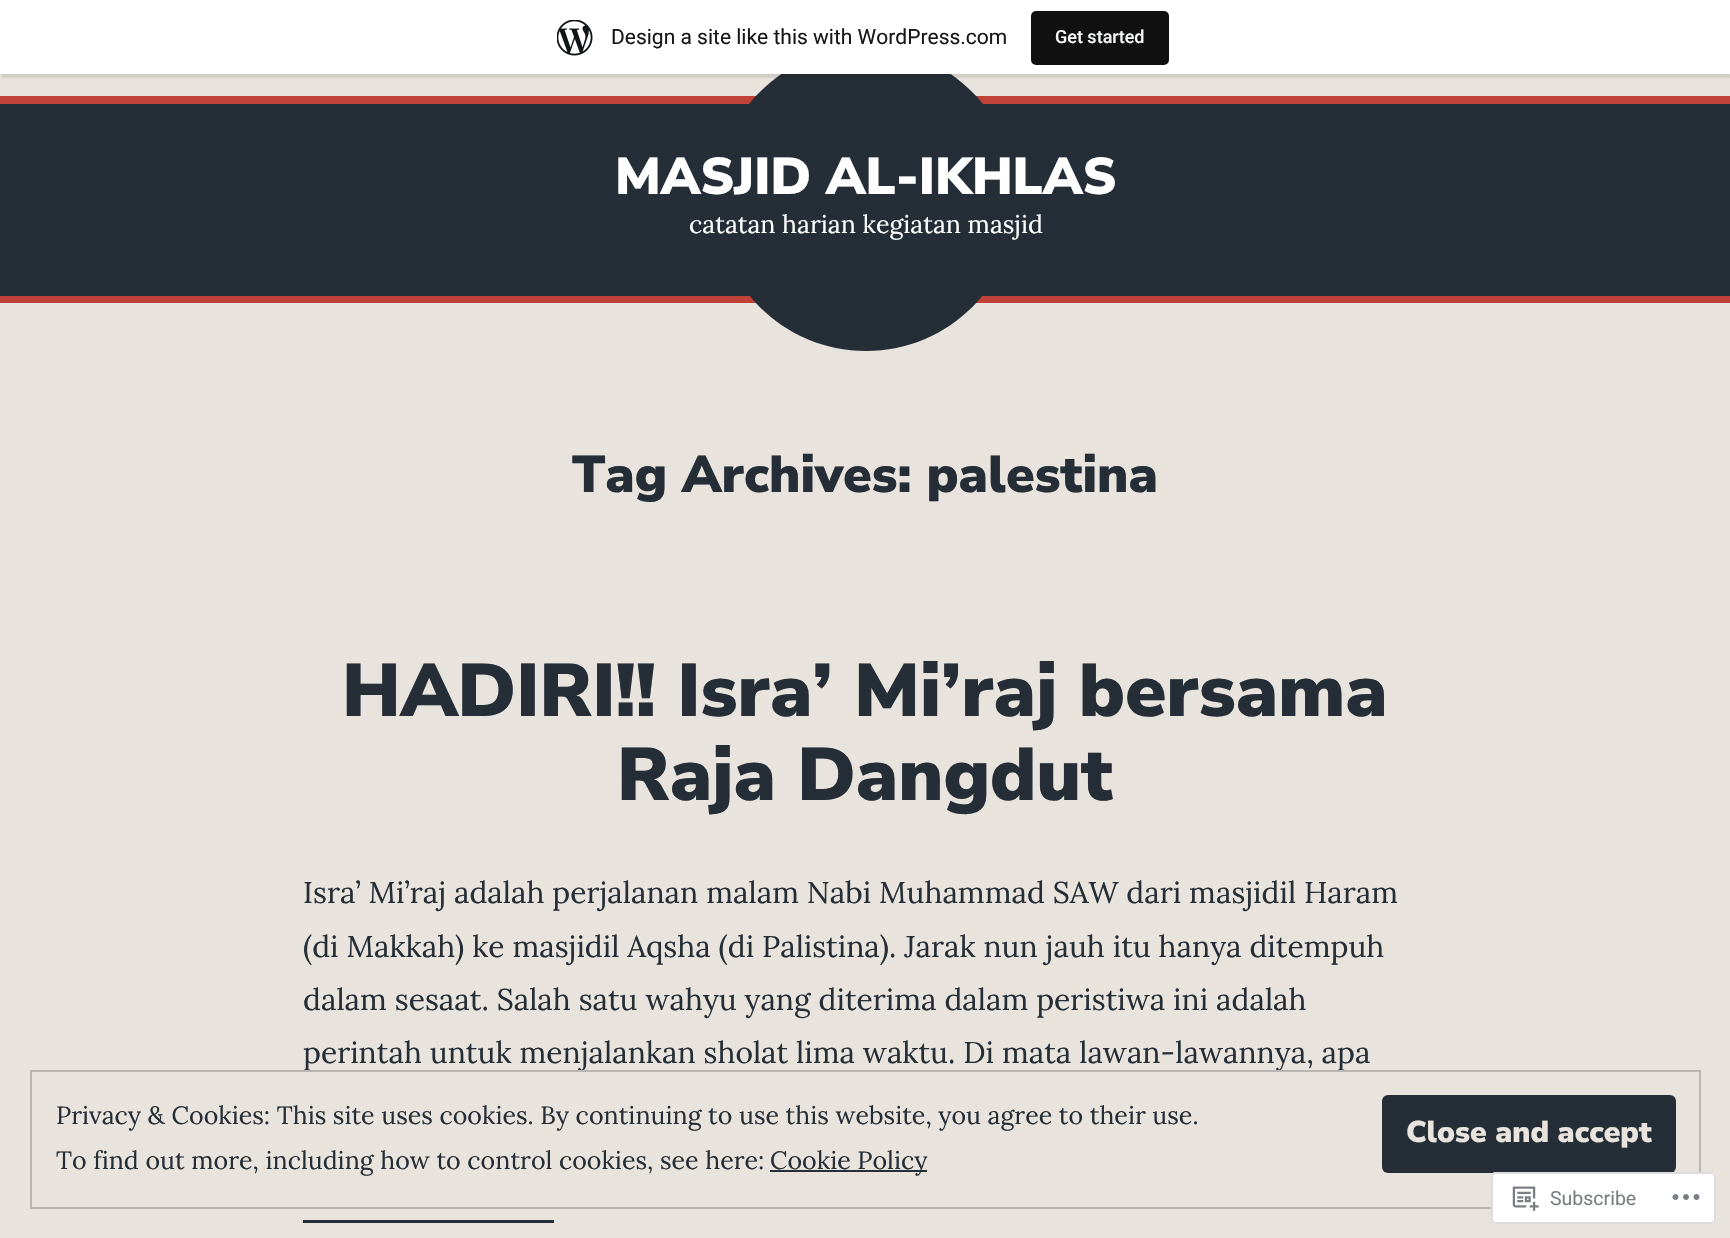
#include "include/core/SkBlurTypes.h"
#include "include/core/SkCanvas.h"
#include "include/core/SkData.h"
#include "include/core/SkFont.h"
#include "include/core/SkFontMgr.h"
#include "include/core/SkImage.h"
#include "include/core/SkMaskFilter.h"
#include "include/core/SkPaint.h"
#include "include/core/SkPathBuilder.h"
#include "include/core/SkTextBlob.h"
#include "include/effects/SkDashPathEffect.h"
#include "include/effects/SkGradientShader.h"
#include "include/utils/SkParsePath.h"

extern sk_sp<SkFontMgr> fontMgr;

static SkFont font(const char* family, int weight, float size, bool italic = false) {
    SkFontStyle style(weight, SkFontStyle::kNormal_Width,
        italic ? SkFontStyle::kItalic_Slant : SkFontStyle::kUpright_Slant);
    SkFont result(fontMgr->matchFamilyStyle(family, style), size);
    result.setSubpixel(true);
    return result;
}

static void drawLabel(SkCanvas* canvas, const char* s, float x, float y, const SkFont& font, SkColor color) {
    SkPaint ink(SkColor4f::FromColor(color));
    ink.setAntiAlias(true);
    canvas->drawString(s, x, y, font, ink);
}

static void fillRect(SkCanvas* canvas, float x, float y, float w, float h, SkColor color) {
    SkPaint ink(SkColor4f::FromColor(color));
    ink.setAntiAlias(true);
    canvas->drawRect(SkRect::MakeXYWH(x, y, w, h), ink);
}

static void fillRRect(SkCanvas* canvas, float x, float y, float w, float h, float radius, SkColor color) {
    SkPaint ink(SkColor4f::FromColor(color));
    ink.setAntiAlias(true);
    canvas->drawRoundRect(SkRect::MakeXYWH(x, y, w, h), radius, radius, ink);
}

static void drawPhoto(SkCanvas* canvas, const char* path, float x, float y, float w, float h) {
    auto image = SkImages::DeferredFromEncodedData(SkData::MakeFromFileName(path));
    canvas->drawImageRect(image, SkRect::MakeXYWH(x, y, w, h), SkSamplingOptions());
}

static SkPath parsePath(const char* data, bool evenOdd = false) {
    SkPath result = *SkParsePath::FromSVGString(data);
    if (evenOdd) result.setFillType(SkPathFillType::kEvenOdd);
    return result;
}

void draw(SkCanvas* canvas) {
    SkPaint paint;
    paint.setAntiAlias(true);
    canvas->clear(0xFFE8E4DD);
    fillRect(canvas, 0, 104, 1730, 192, 0xFF252E36);
    fillRect(canvas, 0, 96, 1730, 8, 0xFFC04239);
    paint.setColor(0xFF252E36);
    canvas->drawPath(parsePath("M866 48C949 48 1016 115 1016 198H716C716 115 783 48 866 48Z"), paint);
    paint.setColor(0x0D000000);
    paint.setMaskFilter(SkMaskFilter::MakeBlur(kNormal_SkBlurStyle, 1.5f));
    canvas->drawRect(SkRect::MakeXYWH(0, 2, 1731, 73), paint);
    paint.setMaskFilter(nullptr);
    paint.setColor(0x14000000);
    canvas->drawPath(parsePath("M2 74V78H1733V5H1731V74Z"), paint);
    fillRect(canvas, 0, 0, 1730, 74, 0xFFFFFFFF);
    drawPhoto(canvas, "assets/img1.png", 557, 20, 36, 36);
    SkFont font1 = font("Roboto", 400, 21);
    drawLabel(canvas, "Design a site like this with WordPress.com", 611, 44, font1, 0xFF171717);
    fillRRect(canvas, 1031, 11, 138, 54, 5, 0xFF111111);
    SkFont font2 = font("Roboto", 500, 18);
    drawLabel(canvas, "Get started", 1055, 43, font2, 0xFFF6F7F7);
    fillRect(canvas, 0, 296, 1730, 7, 0xFFC04239);
    SkFont font3 = font("Nunito Sans", 900, 51.8f);
    drawLabel(canvas, "MASJID AL-IKHLAS", 615, 194, font3, 0xFFFFFFFF);
    paint.setColor(0xFF252E36);
    canvas->drawPath(parsePath("M716 201H1016C1016 284 949 351 866 351C783 351 716 284 716 201Z"), paint);
    SkFont font4 = font("Lora", 400, 25);
    drawLabel(canvas, "catatan harian kegiatan masjid", 689, 233, font4, 0xFFFFFFFF);
    drawLabel(canvas, "Tag Archives: palestina", 572, 492, font3, 0xFF252E36);
    SkFont font5 = font("Nunito Sans", 900, 74.6f);
    drawLabel(canvas, "HADIRI!! Isra’ Mi’raj bersama", 342, 716, font5, 0xFF252E36);
    drawLabel(canvas, "Raja Dangdut", 617, 800, font5, 0xFF252E36);
    SkFont font6 = font("Lora", 400, 30);
    drawLabel(canvas, "Isra’ Mi’raj adalah perjalanan malam Nabi Muhammad SAW dari masjidil Haram", 303, 903, font6, 0xFF252E36);
    drawLabel(canvas, "(di Makkah) ke masjidil Aqsha (di Palistina). Jarak nun jauh itu hanya ditempuh", 303, 957, font6, 0xFF252E36);
    drawLabel(canvas, "dalam sesaat. Salah satu wahyu yang diterima dalam peristiwa ini adalah", 303, 1010, font6, 0xFF252E36);
    drawLabel(canvas, "perintah untuk menjalankan sholat lima waktu. Di mata lawan-lawannya, apa", 303, 1063, font6, 0xFF252E36);
    fillRect(canvas, 303, 1220, 251, 3, 0xFF252E36);
    paint.setStroke(true);
    paint.setStrokeWidth(2);
    paint.setColor(0xFFB9B6B2);
    canvas->drawRect(SkRect::MakeXYWH(31, 1071, 1669, 137), paint);
    drawLabel(canvas, "Privacy & Cookies: This site uses cookies. By continuing to use this website, you agree to their use.", 56, 1124, font4, 0xFF252E36);
    fillRRect(canvas, 1382, 1095, 294, 78, 6, 0xFF252E36);
    SkFont font7 = font("Nunito Sans", 900, 30);
    drawLabel(canvas, "Close and accept", 1406, 1142, font7, 0xFFE8E4DD);
    drawLabel(canvas, "To find out more, including how to control cookies, see here:", 56, 1169, font4, 0xFF252E36);
    fillRect(canvas, 770, 1170, 157, 2, 0xFF252E36);
    drawLabel(canvas, "Cookie Policy", 770, 1169, font4, 0xFF252E36);
    fillRRect(canvas, 1491, 1172, 225, 52, 5, 0xFAFFFFFF);
    paint.setColor(0xFADCDCDE);
    canvas->drawRoundRect(SkRect::MakeXYWH(1492, 1173, 223, 50), 4, 4, paint);
    drawPhoto(canvas, "assets/img2.png", 1512, 1186, 27, 25);
    SkFont font8 = font("Roboto", 400, 19.5f);
    drawLabel(canvas, "Subscribe", 1550, 1205, font8, 0xFF7A7E84);
    drawPhoto(canvas, "assets/img3.png", 1672, 1194, 28, 6);
}
